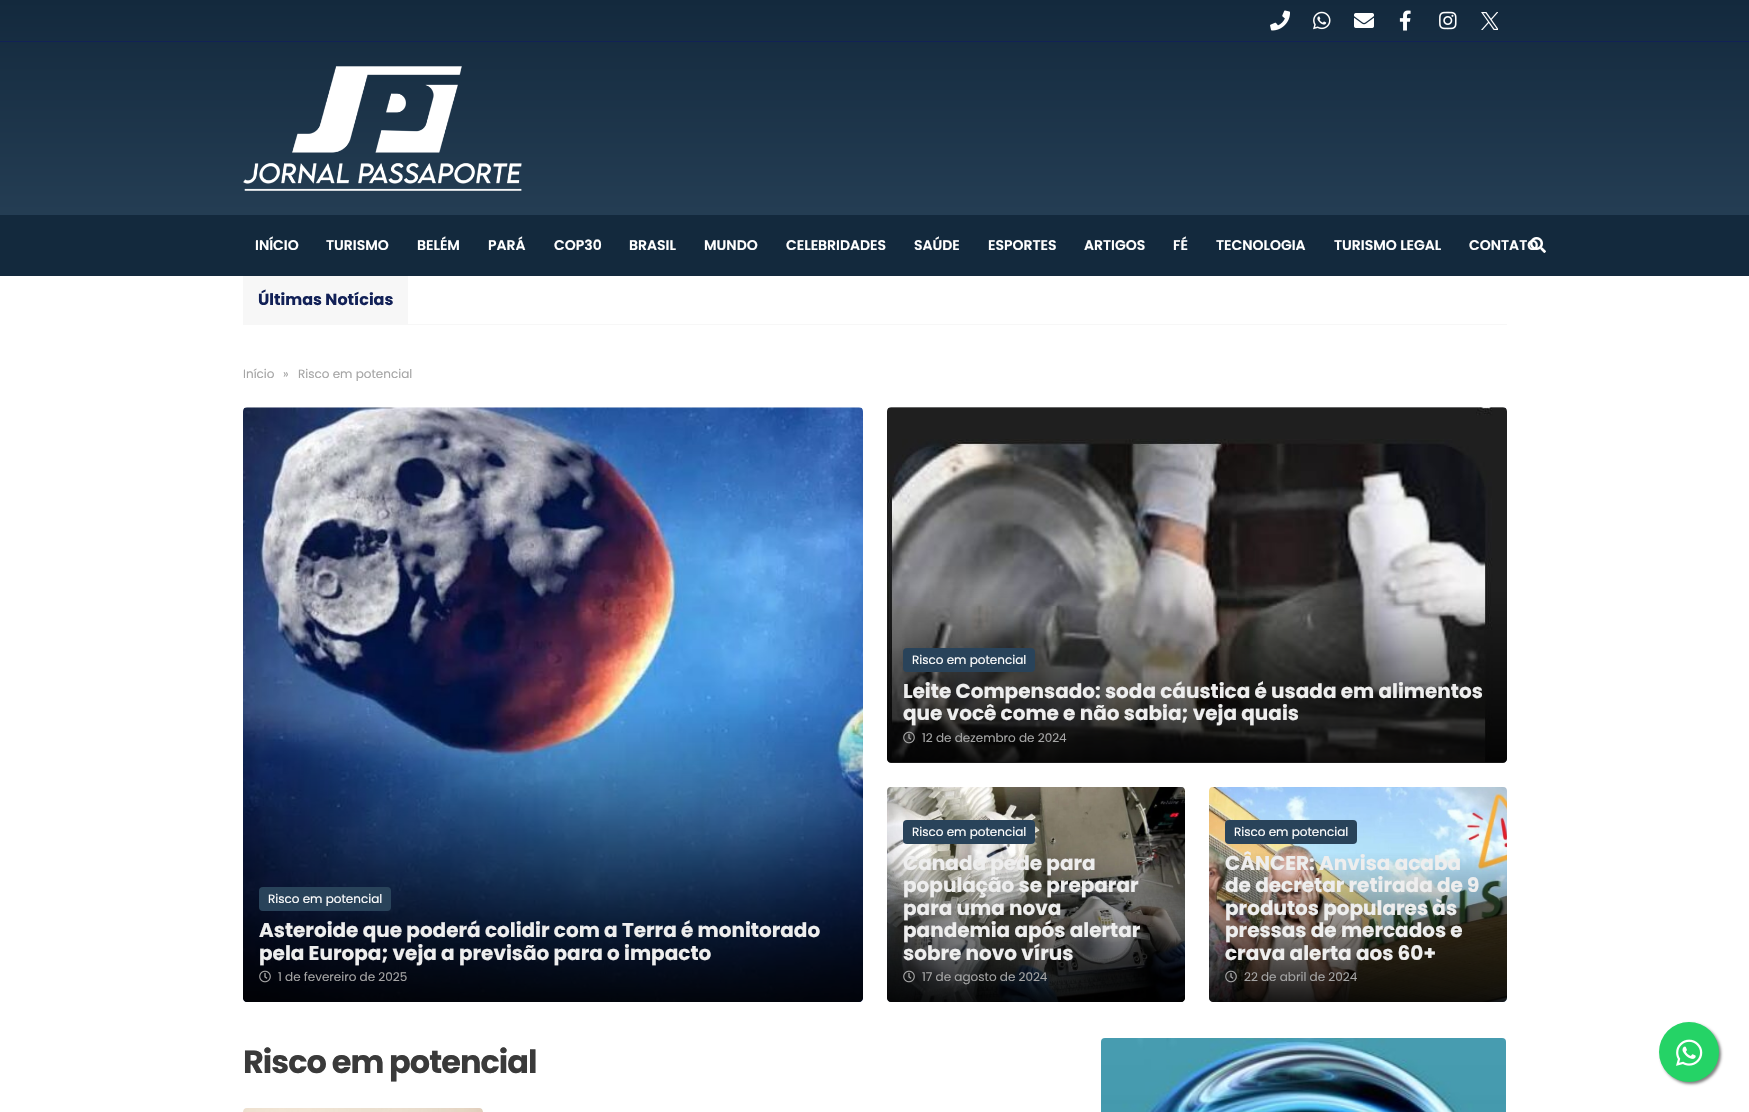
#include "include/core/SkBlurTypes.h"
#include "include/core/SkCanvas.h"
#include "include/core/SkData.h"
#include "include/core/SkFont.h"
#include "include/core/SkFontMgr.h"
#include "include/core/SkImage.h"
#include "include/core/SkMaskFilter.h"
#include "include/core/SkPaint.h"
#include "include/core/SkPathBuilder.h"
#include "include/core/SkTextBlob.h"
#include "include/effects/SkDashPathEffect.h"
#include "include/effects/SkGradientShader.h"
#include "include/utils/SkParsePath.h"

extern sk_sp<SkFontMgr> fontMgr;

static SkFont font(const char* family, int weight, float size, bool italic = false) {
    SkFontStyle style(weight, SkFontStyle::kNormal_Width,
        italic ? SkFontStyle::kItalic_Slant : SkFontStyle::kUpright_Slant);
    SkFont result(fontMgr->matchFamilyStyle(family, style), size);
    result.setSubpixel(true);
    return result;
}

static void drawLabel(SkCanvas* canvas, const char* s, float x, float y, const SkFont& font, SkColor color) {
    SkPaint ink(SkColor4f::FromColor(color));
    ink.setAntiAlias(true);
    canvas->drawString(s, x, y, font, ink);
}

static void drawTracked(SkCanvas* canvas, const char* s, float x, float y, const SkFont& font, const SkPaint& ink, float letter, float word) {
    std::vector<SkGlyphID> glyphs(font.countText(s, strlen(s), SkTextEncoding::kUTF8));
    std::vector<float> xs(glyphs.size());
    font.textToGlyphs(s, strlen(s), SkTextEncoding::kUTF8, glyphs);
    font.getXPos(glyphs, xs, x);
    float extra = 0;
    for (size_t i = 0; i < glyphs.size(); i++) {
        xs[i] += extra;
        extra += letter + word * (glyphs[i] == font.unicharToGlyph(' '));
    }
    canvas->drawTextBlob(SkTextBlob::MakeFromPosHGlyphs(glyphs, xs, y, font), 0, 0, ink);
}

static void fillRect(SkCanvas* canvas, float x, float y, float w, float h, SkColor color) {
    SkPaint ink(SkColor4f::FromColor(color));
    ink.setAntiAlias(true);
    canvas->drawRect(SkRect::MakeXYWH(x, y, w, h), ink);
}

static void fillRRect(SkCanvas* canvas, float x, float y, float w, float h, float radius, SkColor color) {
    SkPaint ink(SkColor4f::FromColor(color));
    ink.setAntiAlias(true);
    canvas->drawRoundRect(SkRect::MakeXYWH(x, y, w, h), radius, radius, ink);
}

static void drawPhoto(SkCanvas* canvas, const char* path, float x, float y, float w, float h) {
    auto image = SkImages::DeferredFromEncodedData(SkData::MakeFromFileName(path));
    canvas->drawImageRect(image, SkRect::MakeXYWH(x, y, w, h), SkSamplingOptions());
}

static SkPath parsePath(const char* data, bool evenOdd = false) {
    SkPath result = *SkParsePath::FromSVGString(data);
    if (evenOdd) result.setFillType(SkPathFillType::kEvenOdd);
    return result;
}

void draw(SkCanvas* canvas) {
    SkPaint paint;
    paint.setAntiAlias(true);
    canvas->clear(0xFFFFFFFF);
    {
        const SkColor colors[] = {0xFF13293D, 0xFF29435A};
        const float stops[] = {0, 1};
        const SkPoint ends[] = {{875, 0}, {875, 276}};
        paint.setShader(SkGradientShader::MakeLinear(ends, colors, stops, 2, SkTileMode::kClamp));
        paint.setAlpha(255);
    }
    canvas->drawRect(SkRect::MakeXYWH(0, 0, 1749, 215), paint);
    drawPhoto(canvas, "assets/img1.png", 1270, 10, 20, 21);
    drawPhoto(canvas, "assets/img2.png", 1313, 11, 18, 19);
    drawPhoto(canvas, "assets/img3.png", 1354, 13, 20, 15);
    drawPhoto(canvas, "assets/img4.png", 1399, 10, 12, 21);
    drawPhoto(canvas, "assets/img5.png", 1439, 11, 18, 19);
    drawPhoto(canvas, "assets/img6.png", 1481, 12, 17, 18);
    fillRect(canvas, 0, 41, 1749, 1, 0xFF122157);
    drawPhoto(canvas, "assets/img7.png", 243, 66, 279, 125);
    fillRect(canvas, 0, 215, 1749, 61, 0xFF13293D);
    SkFont font1 = font("Poppins", 600, 14);
    drawLabel(canvas, "INÍCIO", 255, 250, font1, 0xFFFFFFFF);
    drawLabel(canvas, "TURISMO", 326, 250, font1, 0xFFFFFFFF);
    drawLabel(canvas, "BELÉM", 417, 250, font1, 0xFFFFFFFF);
    drawLabel(canvas, "PARÁ", 488, 250, font1, 0xFFFFFFFF);
    drawLabel(canvas, "COP30", 554, 250, font1, 0xFFFFFFFF);
    drawLabel(canvas, "BRASIL", 629, 250, font1, 0xFFFFFFFF);
    drawLabel(canvas, "MUNDO", 704, 250, font1, 0xFFFFFFFF);
    drawLabel(canvas, "CELEBRIDADES", 786, 250, font1, 0xFFFFFFFF);
    drawLabel(canvas, "SAÚDE", 914, 250, font1, 0xFFFFFFFF);
    drawLabel(canvas, "ESPORTES", 988, 250, font1, 0xFFFFFFFF);
    drawLabel(canvas, "ARTIGOS", 1084, 250, font1, 0xFFFFFFFF);
    drawLabel(canvas, "FÉ", 1173, 250, font1, 0xFFFFFFFF);
    drawLabel(canvas, "TECNOLOGIA", 1216, 250, font1, 0xFFFFFFFF);
    drawLabel(canvas, "TURISMO LEGAL", 1334, 250, font1, 0xFFFFFFFF);
    drawPhoto(canvas, "assets/img8.png", 1530, 237, 16, 16);
    drawLabel(canvas, "CONTATO", 1469, 250, font1, 0xFFFFFFFF);
    fillRect(canvas, 243, 324, 1264, 1, 0xFFF7F7F7);
    fillRect(canvas, 243, 276, 165, 48, 0xFFF7F7F7);
    SkFont font2 = font("Poppins", 700, 16);
    drawLabel(canvas, "Últimas Notícias", 258, 305, font2, 0xFF122157);
    SkFont font3 = font("Poppins", 400, 12);
    drawLabel(canvas, "Início", 243, 378, font3, 0xFFA5A5A5);
    drawLabel(canvas, "»", 283, 378, font3, 0xFFA5A5A5);
    drawLabel(canvas, "Risco em potencial", 298, 378, font3, 0xFFA5A5A5);
    fillRRect(canvas, 243, 407, 620, 595, 4, 0xFFF6F8FA);
    {
        const SkColor colors[] = {0x00FFFFFF, 0x80FFFFFF, 0x00FFFFFF, 0x00FFFFFF};
        const float stops[] = {0, 0.2f, 0.4f, 1};
        const SkPoint ends[] = {{711, 557}, {1511, 557}};
        paint.setShader(SkGradientShader::MakeLinear(ends, colors, stops, 4, SkTileMode::kClamp));
        paint.setAlpha(255);
    }
    canvas->drawPath(parsePath("M711 407H859C861 407 863 409 863 411V707H711Z"), paint);
    drawPhoto(canvas, "assets/img9.png", 243, 407, 620, 595);
    canvas->save();
    canvas->clipPath(parsePath("M247 407H859C861 407 863 409 863 411V998C863 1000 861 1002 859 1002H247C245 1002 243 1000 243 998V411C243 409 245 407 247 407Z"), true);
    {
        const SkColor colors[] = {0x00000000, 0xE6000000};
        const float stops[] = {0.5f, 1};
        const SkPoint ends[] = {{553, 408}, {553, 1003}};
        paint.setShader(SkGradientShader::MakeLinear(ends, colors, stops, 2, SkTileMode::kClamp));
        paint.setAlpha(255);
    }
    canvas->drawRoundRect(SkRect::MakeXYWH(243, 408, 620, 595), 4, 4, paint);
    canvas->restore();
    fillRRect(canvas, 259, 887, 132, 24, 4, 0xFF29435A);
    drawLabel(canvas, "Risco em potencial", 268, 903, font3, 0xFFFFFFFF);
    SkFont font4 = font("Poppins", 700, 20);
    drawLabel(canvas, "Asteroide que poderá colidir com a Terra é monitorado", 259, 937, font4, 0xFFEEEEEE);
    drawLabel(canvas, "pela Europa; veja a previsão para o impacto", 259, 960, font4, 0xFFEEEEEE);
    drawPhoto(canvas, "assets/img10.png", 259, 970, 12, 13);
    drawLabel(canvas, "1 de fevereiro de 2025", 278, 981, font3, 0xFFA5A5A5);
    fillRRect(canvas, 887, 407, 620, 356, 4, 0xFFF6F8FA);
    {
        const SkColor colors[] = {0x00FFFFFF, 0x80FFFFFF, 0x00FFFFFF, 0x00FFFFFF};
        const float stops[] = {0, 0.2f, 0.4f, 1};
        const SkPoint ends[] = {{1355, 557}, {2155, 557}};
        paint.setShader(SkGradientShader::MakeLinear(ends, colors, stops, 4, SkTileMode::kClamp));
        paint.setAlpha(255);
    }
    canvas->drawPath(parsePath("M1355 407H1503C1505 407 1507 409 1507 411V707H1355Z"), paint);
    drawPhoto(canvas, "assets/img11.png", 887, 407, 620, 356);
    canvas->save();
    canvas->clipPath(parsePath("M891 407H1503C1505 407 1507 409 1507 411V759C1507 761 1505 763 1503 763H891C889 763 887 761 887 759V411C887 409 889 407 891 407Z"), true);
    {
        const SkColor colors[] = {0x00000000, 0xE6000000};
        const float stops[] = {0.5f, 1};
        const SkPoint ends[] = {{1197, 408}, {1197, 764}};
        paint.setShader(SkGradientShader::MakeLinear(ends, colors, stops, 2, SkTileMode::kClamp));
        paint.setAlpha(255);
    }
    canvas->drawRoundRect(SkRect::MakeXYWH(887, 408, 620, 356), 4, 4, paint);
    canvas->restore();
    fillRRect(canvas, 903, 648, 132, 24, 4, 0xFF29435A);
    drawLabel(canvas, "Risco em potencial", 912, 664, font3, 0xFFFFFFFF);
    drawLabel(canvas, "Leite Compensado: soda cáustica é usada em alimentos", 903, 698, font4, 0xFFEEEEEE);
    drawLabel(canvas, "que você come e não sabia; veja quais", 903, 720, font4, 0xFFEEEEEE);
    drawPhoto(canvas, "assets/img12.png", 903, 731, 12, 13);
    drawLabel(canvas, "12 de dezembro de 2024", 922, 742, font3, 0xFFA5A5A5);
    fillRRect(canvas, 887, 787, 298, 215, 4, 0xFFF6F8FA);
    drawPhoto(canvas, "assets/img13.png", 887, 787, 298, 215);
    canvas->save();
    canvas->clipPath(parsePath("M891 787H1181C1183 787 1185 789 1185 791V998C1185 1000 1183 1002 1181 1002H891C889 1002 887 1000 887 998V791C887 789 889 787 891 787Z"), true);
    {
        const SkColor colors[] = {0x00000000, 0xE6000000};
        const float stops[] = {0.3f, 1};
        const SkPoint ends[] = {{1036, 788}, {1036, 1003}};
        paint.setShader(SkGradientShader::MakeLinear(ends, colors, stops, 2, SkTileMode::kClamp));
        paint.setAlpha(255);
    }
    canvas->drawRoundRect(SkRect::MakeXYWH(887, 788, 298, 215), 4, 4, paint);
    canvas->restore();
    fillRRect(canvas, 903, 820, 132, 24, 4, 0xFF29435A);
    drawLabel(canvas, "Risco em potencial", 912, 836, font3, 0xFFFFFFFF);
    drawLabel(canvas, "Canadá pede para", 903, 870, font4, 0xFFEEEEEE);
    drawLabel(canvas, "população se preparar", 903, 892, font4, 0xFFEEEEEE);
    drawLabel(canvas, "para uma nova", 903, 915, font4, 0xFFEEEEEE);
    drawLabel(canvas, "pandemia após alertar", 903, 937, font4, 0xFFEEEEEE);
    drawLabel(canvas, "sobre novo vírus", 903, 960, font4, 0xFFEEEEEE);
    drawPhoto(canvas, "assets/img14.png", 903, 970, 12, 13);
    drawLabel(canvas, "17 de agosto de 2024", 922, 981, font3, 0xFFA5A5A5);
    fillRRect(canvas, 1209, 787, 298, 215, 4, 0xFFF6F8FA);
    drawPhoto(canvas, "assets/img15.png", 1209, 787, 298, 215);
    canvas->save();
    canvas->clipPath(parsePath("M1213 787H1503C1505 787 1507 789 1507 791V998C1507 1000 1505 1002 1503 1002H1213C1211 1002 1209 1000 1209 998V791C1209 789 1211 787 1213 787Z"), true);
    {
        const SkColor colors[] = {0x00000000, 0xE6000000};
        const float stops[] = {0.3f, 1};
        const SkPoint ends[] = {{1358, 788}, {1358, 1003}};
        paint.setShader(SkGradientShader::MakeLinear(ends, colors, stops, 2, SkTileMode::kClamp));
        paint.setAlpha(255);
    }
    canvas->drawRoundRect(SkRect::MakeXYWH(1209, 788, 298, 215), 4, 4, paint);
    canvas->restore();
    fillRRect(canvas, 1225, 820, 132, 24, 4, 0xFF29435A);
    drawLabel(canvas, "Risco em potencial", 1234, 836, font3, 0xFFFFFFFF);
    drawLabel(canvas, "CÂNCER: Anvisa acaba", 1225, 870, font4, 0xFFEEEEEE);
    drawLabel(canvas, "de decretar retirada de 9", 1225, 892, font4, 0xFFEEEEEE);
    drawLabel(canvas, "produtos populares às", 1225, 915, font4, 0xFFEEEEEE);
    drawLabel(canvas, "pressas de mercados e", 1225, 937, font4, 0xFFEEEEEE);
    drawLabel(canvas, "crava alerta aos 60+", 1225, 960, font4, 0xFFEEEEEE);
    drawPhoto(canvas, "assets/img16.png", 1225, 970, 12, 13);
    drawLabel(canvas, "22 de abril de 2024", 1244, 981, font3, 0xFFA5A5A5);
    SkFont font5 = font("Poppins", 700, 32);
    paint.setShader(nullptr);
    paint.setColor(0xFF3A3A3A);
    drawTracked(canvas, "Risco em potencial", 243, 1073, font5, paint, -1, 0);
    drawPhoto(canvas, "assets/img17.png", 243, 1108, 240, 4);
    drawPhoto(canvas, "assets/img18.png", 1101, 1038, 405, 74);
    paint.setColor(0x80000000);
    paint.setMaskFilter(SkMaskFilter::MakeBlur(kNormal_SkBlurStyle, 1.5f));
    canvas->drawRoundRect(SkRect::MakeXYWH(1661, 1024, 60, 60), 30, 30, paint);
    paint.setMaskFilter(nullptr);
    paint.setColor(0xFF25D366);
    canvas->drawCircle(1689, 1052, 30, paint);
    drawPhoto(canvas, "assets/img19.png", 1676, 1039, 27, 27);
}
